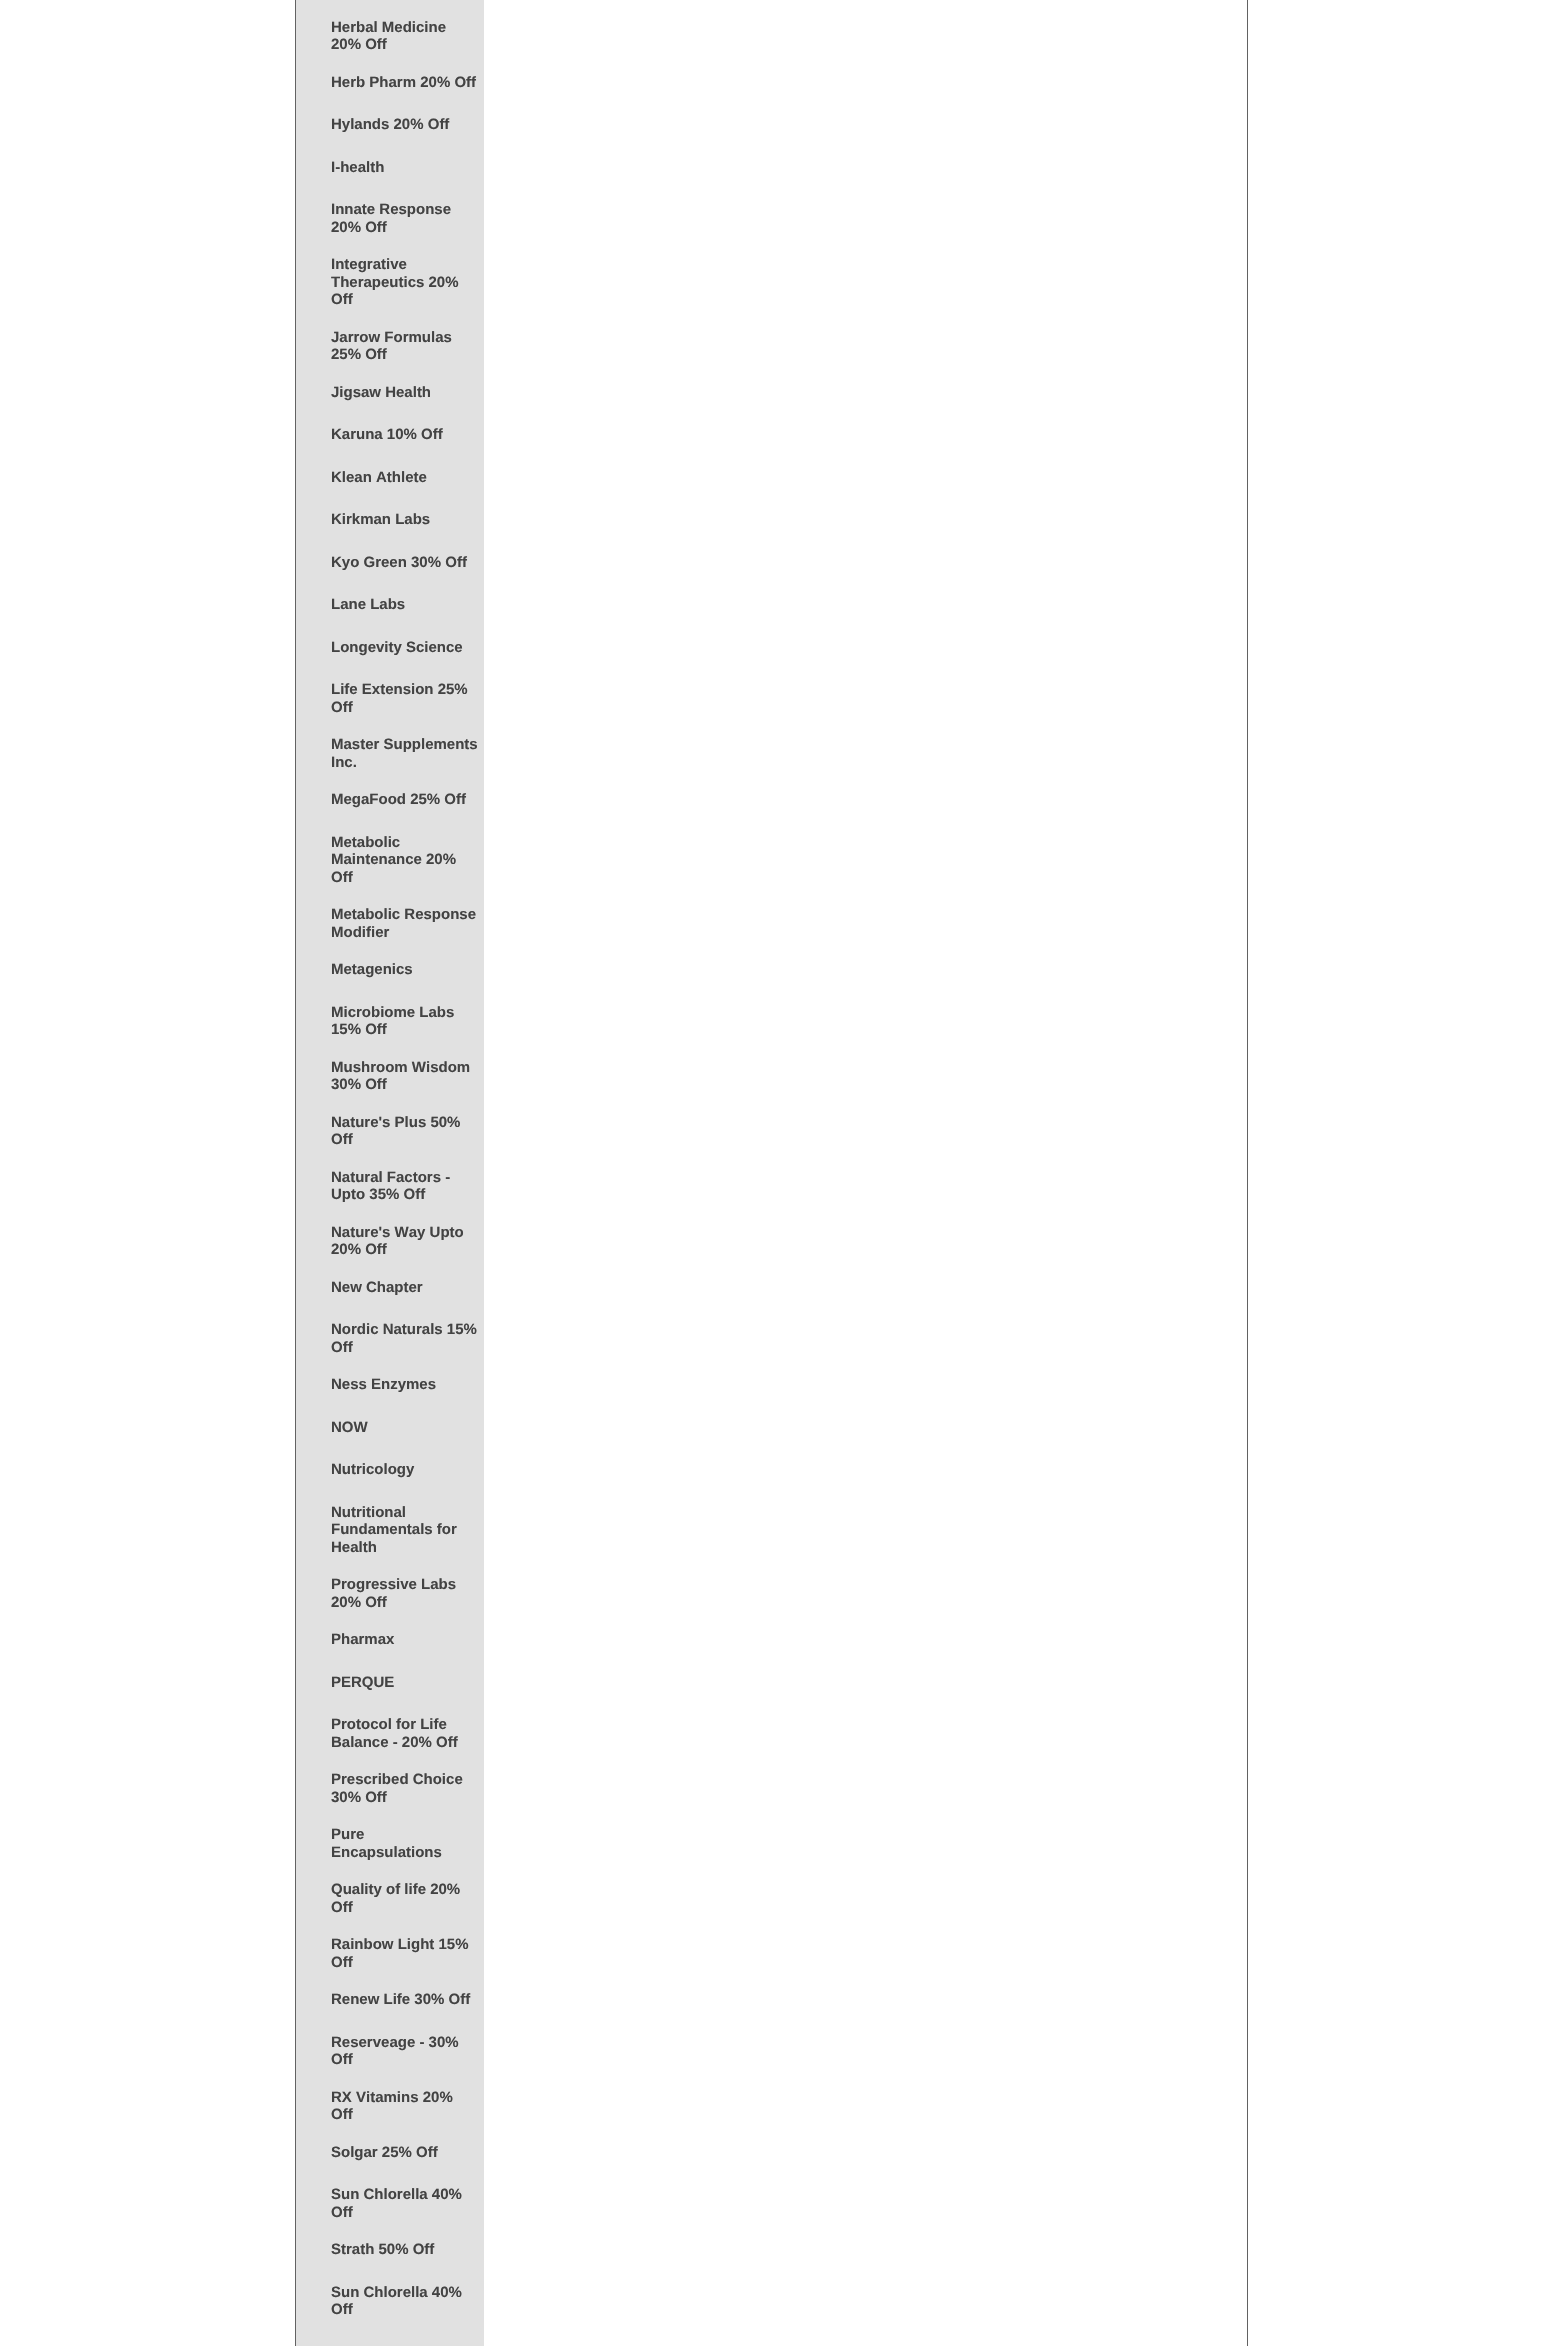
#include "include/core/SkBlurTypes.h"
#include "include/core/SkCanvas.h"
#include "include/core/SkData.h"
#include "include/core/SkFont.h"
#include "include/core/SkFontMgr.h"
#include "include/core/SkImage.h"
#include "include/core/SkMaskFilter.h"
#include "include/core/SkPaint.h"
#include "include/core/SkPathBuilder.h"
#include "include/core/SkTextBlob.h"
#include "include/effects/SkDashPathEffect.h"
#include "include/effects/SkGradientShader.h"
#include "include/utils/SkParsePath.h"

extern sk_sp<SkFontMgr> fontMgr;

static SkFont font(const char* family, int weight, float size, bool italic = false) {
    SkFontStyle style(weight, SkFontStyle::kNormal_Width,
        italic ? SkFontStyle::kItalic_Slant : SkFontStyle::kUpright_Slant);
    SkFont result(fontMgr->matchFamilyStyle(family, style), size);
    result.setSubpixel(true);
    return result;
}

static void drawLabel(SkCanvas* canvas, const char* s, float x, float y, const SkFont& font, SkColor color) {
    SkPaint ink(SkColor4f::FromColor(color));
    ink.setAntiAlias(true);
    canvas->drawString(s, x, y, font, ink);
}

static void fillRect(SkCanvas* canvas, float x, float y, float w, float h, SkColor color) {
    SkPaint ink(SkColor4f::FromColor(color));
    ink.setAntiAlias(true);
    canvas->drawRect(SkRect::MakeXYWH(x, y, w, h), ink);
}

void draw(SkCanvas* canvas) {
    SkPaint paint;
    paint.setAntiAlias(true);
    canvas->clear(0xFFFFFFFF);
    paint.setStroke(true);
    paint.setStrokeWidth(1);
    paint.setColor(0xFF626262);
    canvas->drawRect(SkRect::MakeXYWH(295.5f, -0.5f, 952, 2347), paint);
    fillRect(canvas, 296, 0, 188, 2346, 0xFFE1E1E1);
    SkFont font1 = font("Liberation Sans", 700, 15);
    drawLabel(canvas, "Herbal Medicine", 331, 32, font1, 0xFF434343);
    drawLabel(canvas, "20% Off", 331, 49, font1, 0xFF434343);
    drawLabel(canvas, "Herb Pharm 20% Off", 331, 87, font1, 0xFF434343);
    drawLabel(canvas, "Hylands 20% Off", 331, 129, font1, 0xFF434343);
    drawLabel(canvas, "I-health", 331, 172, font1, 0xFF434343);
    drawLabel(canvas, "Innate Response", 331, 214, font1, 0xFF434343);
    drawLabel(canvas, "20% Off", 331, 232, font1, 0xFF434343);
    drawLabel(canvas, "Integrative", 331, 269, font1, 0xFF434343);
    drawLabel(canvas, "Therapeutics 20%", 331, 287, font1, 0xFF434343);
    drawLabel(canvas, "Off", 331, 304, font1, 0xFF434343);
    drawLabel(canvas, "Jarrow Formulas", 331, 342, font1, 0xFF434343);
    drawLabel(canvas, "25% Off", 331, 359, font1, 0xFF434343);
    drawLabel(canvas, "Jigsaw Health", 331, 397, font1, 0xFF434343);
    drawLabel(canvas, "Karuna 10% Off", 331, 439, font1, 0xFF434343);
    drawLabel(canvas, "Klean Athlete", 331, 482, font1, 0xFF434343);
    drawLabel(canvas, "Kirkman Labs", 331, 524, font1, 0xFF434343);
    drawLabel(canvas, "Kyo Green 30% Off", 331, 567, font1, 0xFF434343);
    drawLabel(canvas, "Lane Labs", 331, 609, font1, 0xFF434343);
    drawLabel(canvas, "Longevity Science", 331, 652, font1, 0xFF434343);
    drawLabel(canvas, "Life Extension 25%", 331, 694, font1, 0xFF434343);
    drawLabel(canvas, "Off", 331, 712, font1, 0xFF434343);
    drawLabel(canvas, "Master Supplements", 331, 749, font1, 0xFF434343);
    drawLabel(canvas, "Inc.", 331, 767, font1, 0xFF434343);
    drawLabel(canvas, "MegaFood 25% Off", 331, 804, font1, 0xFF434343);
    drawLabel(canvas, "Metabolic", 331, 847, font1, 0xFF434343);
    drawLabel(canvas, "Maintenance 20%", 331, 864, font1, 0xFF434343);
    drawLabel(canvas, "Off", 331, 882, font1, 0xFF434343);
    drawLabel(canvas, "Metabolic Response", 331, 919, font1, 0xFF434343);
    drawLabel(canvas, "Modifier", 331, 937, font1, 0xFF434343);
    drawLabel(canvas, "Metagenics", 331, 974, font1, 0xFF434343);
    drawLabel(canvas, "Microbiome Labs", 331, 1017, font1, 0xFF434343);
    drawLabel(canvas, "15% Off", 331, 1034, font1, 0xFF434343);
    drawLabel(canvas, "Mushroom Wisdom", 331, 1072, font1, 0xFF434343);
    drawLabel(canvas, "30% Off", 331, 1089, font1, 0xFF434343);
    drawLabel(canvas, "Nature's Plus 50%", 331, 1127, font1, 0xFF434343);
    drawLabel(canvas, "Off", 331, 1144, font1, 0xFF434343);
    drawLabel(canvas, "Natural Factors -", 331, 1182, font1, 0xFF434343);
    drawLabel(canvas, "Upto 35% Off", 331, 1199, font1, 0xFF434343);
    drawLabel(canvas, "Nature's Way Upto", 331, 1237, font1, 0xFF434343);
    drawLabel(canvas, "20% Off", 331, 1254, font1, 0xFF434343);
    drawLabel(canvas, "New Chapter", 331, 1292, font1, 0xFF434343);
    drawLabel(canvas, "Nordic Naturals 15%", 331, 1334, font1, 0xFF434343);
    drawLabel(canvas, "Off", 331, 1352, font1, 0xFF434343);
    drawLabel(canvas, "Ness Enzymes", 331, 1389, font1, 0xFF434343);
    drawLabel(canvas, "NOW", 331, 1432, font1, 0xFF434343);
    drawLabel(canvas, "Nutricology", 331, 1474, font1, 0xFF434343);
    drawLabel(canvas, "Nutritional", 331, 1517, font1, 0xFF434343);
    drawLabel(canvas, "Fundamentals for", 331, 1534, font1, 0xFF434343);
    drawLabel(canvas, "Health", 331, 1552, font1, 0xFF434343);
    drawLabel(canvas, "Progressive Labs", 331, 1589, font1, 0xFF434343);
    drawLabel(canvas, "20% Off", 331, 1607, font1, 0xFF434343);
    drawLabel(canvas, "Pharmax", 331, 1644, font1, 0xFF434343);
    drawLabel(canvas, "PERQUE", 331, 1687, font1, 0xFF434343);
    drawLabel(canvas, "Protocol for Life", 331, 1729, font1, 0xFF434343);
    drawLabel(canvas, "Balance - 20% Off", 331, 1747, font1, 0xFF434343);
    drawLabel(canvas, "Prescribed Choice", 331, 1784, font1, 0xFF434343);
    drawLabel(canvas, "30% Off", 331, 1802, font1, 0xFF434343);
    drawLabel(canvas, "Pure", 331, 1839, font1, 0xFF434343);
    drawLabel(canvas, "Encapsulations", 331, 1857, font1, 0xFF434343);
    drawLabel(canvas, "Quality of life 20%", 331, 1894, font1, 0xFF434343);
    drawLabel(canvas, "Off", 331, 1912, font1, 0xFF434343);
    drawLabel(canvas, "Rainbow Light 15%", 331, 1949, font1, 0xFF434343);
    drawLabel(canvas, "Off", 331, 1967, font1, 0xFF434343);
    drawLabel(canvas, "Renew Life 30% Off", 331, 2004, font1, 0xFF434343);
    drawLabel(canvas, "Reserveage - 30%", 331, 2047, font1, 0xFF434343);
    drawLabel(canvas, "Off", 331, 2064, font1, 0xFF434343);
    drawLabel(canvas, "RX Vitamins 20%", 331, 2102, font1, 0xFF434343);
    drawLabel(canvas, "Off", 331, 2119, font1, 0xFF434343);
    drawLabel(canvas, "Solgar 25% Off", 331, 2157, font1, 0xFF434343);
    drawLabel(canvas, "Sun Chlorella 40%", 331, 2199, font1, 0xFF434343);
    drawLabel(canvas, "Off", 331, 2217, font1, 0xFF434343);
    drawLabel(canvas, "Strath 50% Off", 331, 2254, font1, 0xFF434343);
    drawLabel(canvas, "Sun Chlorella 40%", 331, 2297, font1, 0xFF434343);
    drawLabel(canvas, "Off", 331, 2314, font1, 0xFF434343);
}
